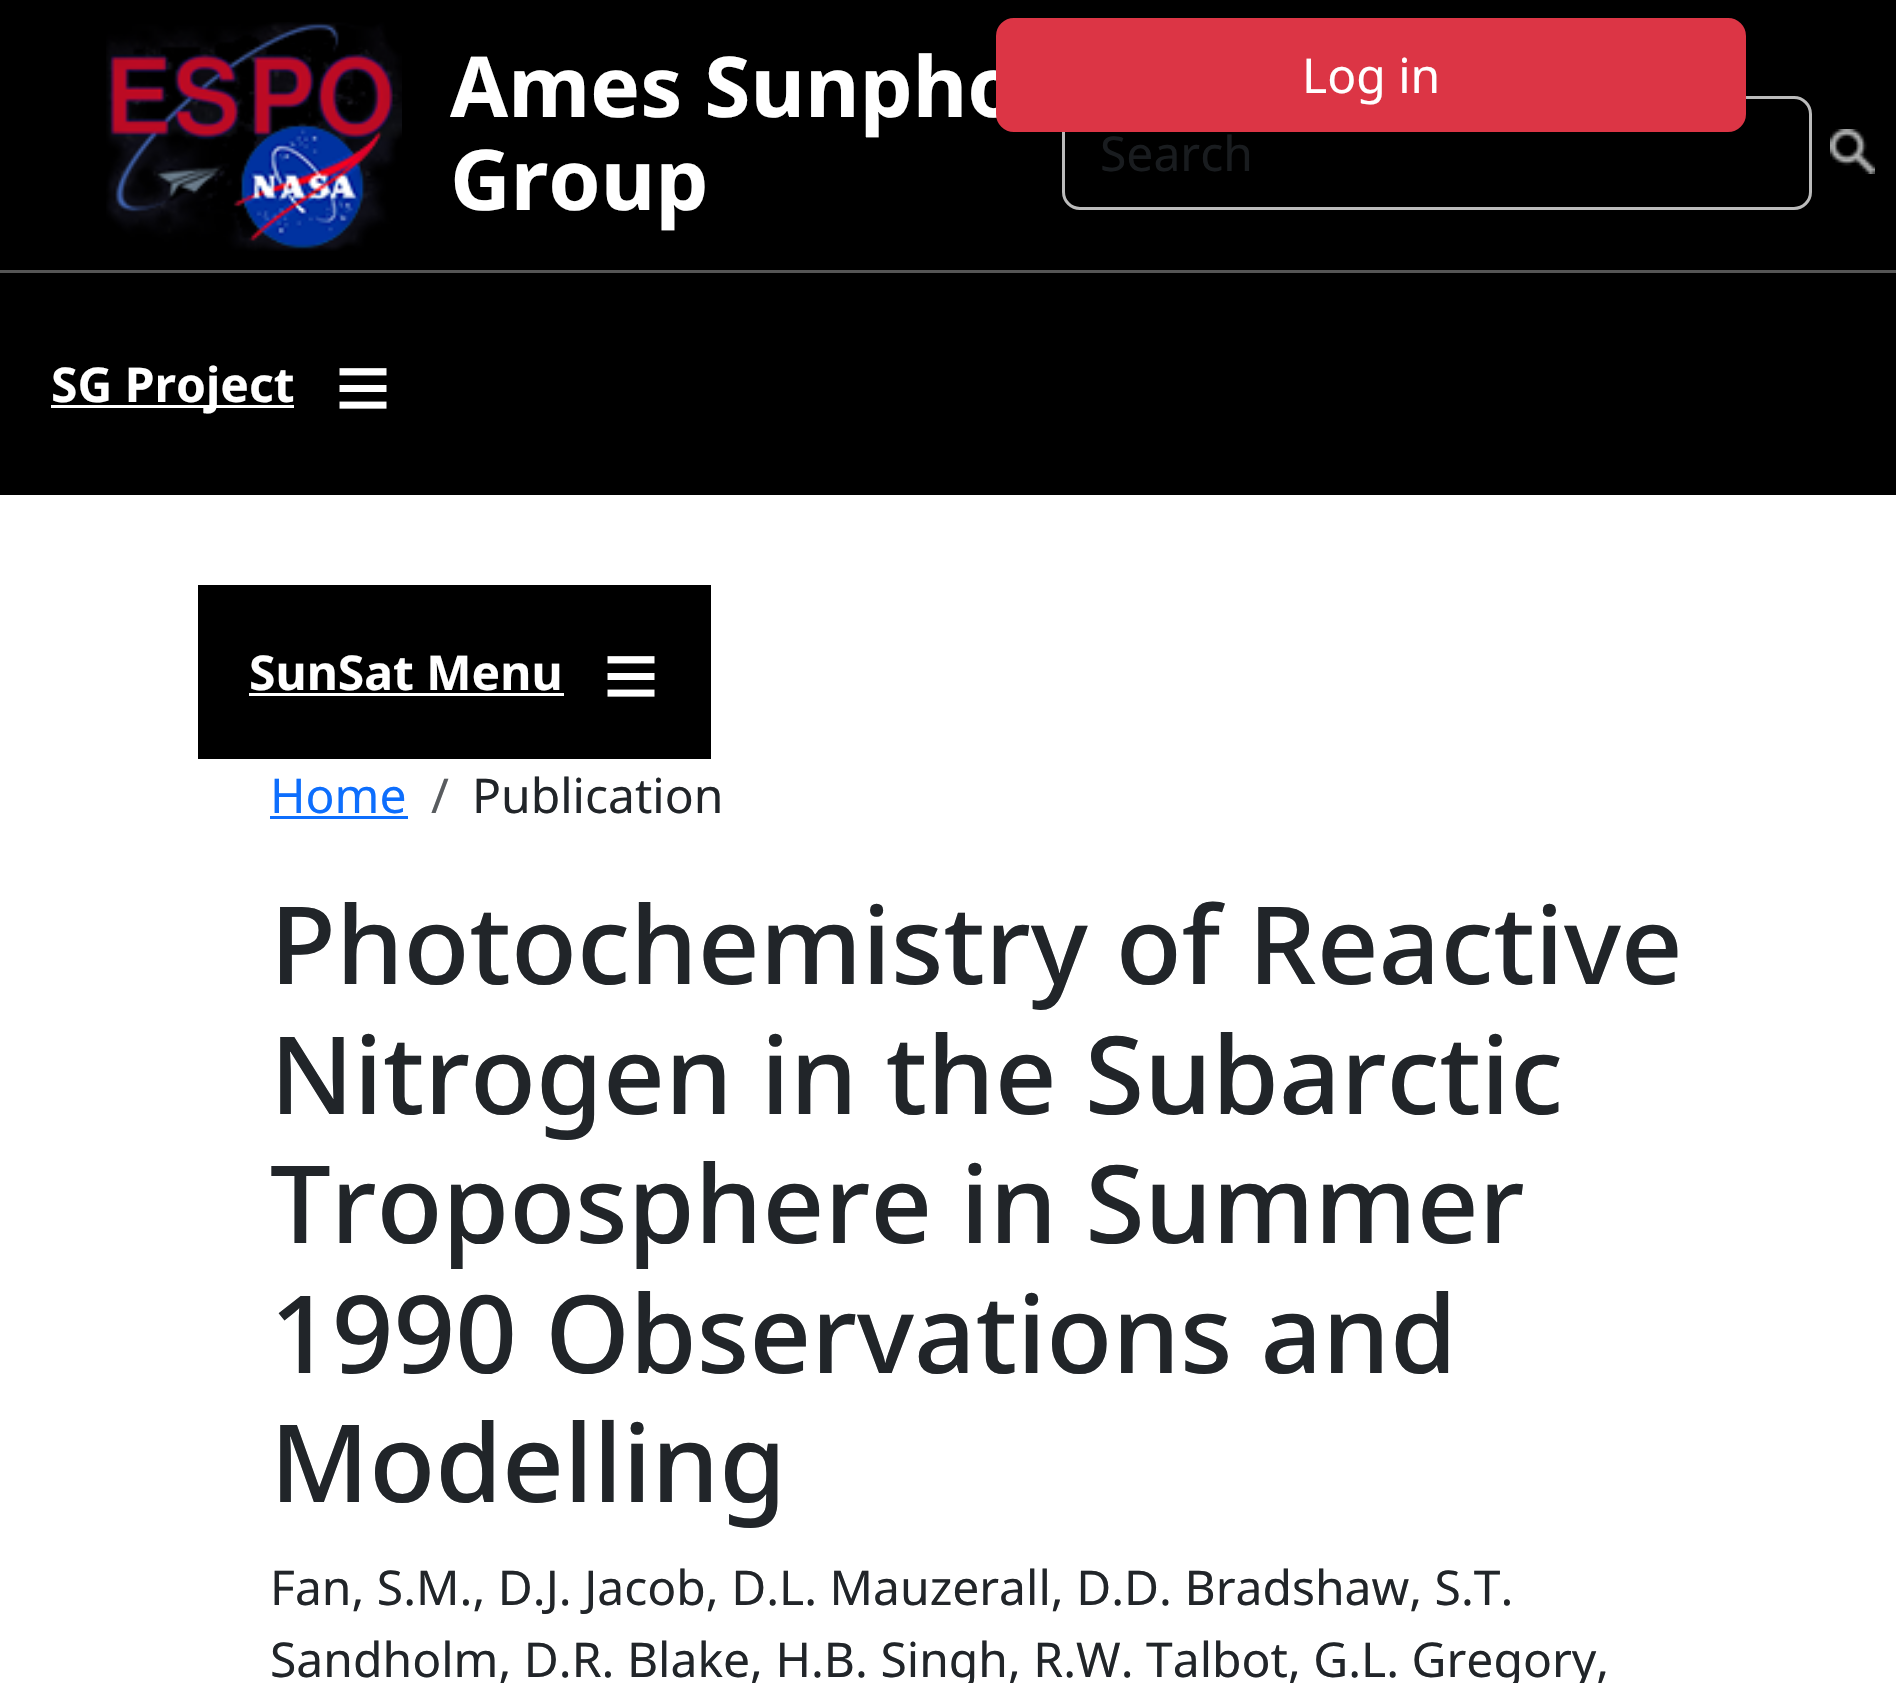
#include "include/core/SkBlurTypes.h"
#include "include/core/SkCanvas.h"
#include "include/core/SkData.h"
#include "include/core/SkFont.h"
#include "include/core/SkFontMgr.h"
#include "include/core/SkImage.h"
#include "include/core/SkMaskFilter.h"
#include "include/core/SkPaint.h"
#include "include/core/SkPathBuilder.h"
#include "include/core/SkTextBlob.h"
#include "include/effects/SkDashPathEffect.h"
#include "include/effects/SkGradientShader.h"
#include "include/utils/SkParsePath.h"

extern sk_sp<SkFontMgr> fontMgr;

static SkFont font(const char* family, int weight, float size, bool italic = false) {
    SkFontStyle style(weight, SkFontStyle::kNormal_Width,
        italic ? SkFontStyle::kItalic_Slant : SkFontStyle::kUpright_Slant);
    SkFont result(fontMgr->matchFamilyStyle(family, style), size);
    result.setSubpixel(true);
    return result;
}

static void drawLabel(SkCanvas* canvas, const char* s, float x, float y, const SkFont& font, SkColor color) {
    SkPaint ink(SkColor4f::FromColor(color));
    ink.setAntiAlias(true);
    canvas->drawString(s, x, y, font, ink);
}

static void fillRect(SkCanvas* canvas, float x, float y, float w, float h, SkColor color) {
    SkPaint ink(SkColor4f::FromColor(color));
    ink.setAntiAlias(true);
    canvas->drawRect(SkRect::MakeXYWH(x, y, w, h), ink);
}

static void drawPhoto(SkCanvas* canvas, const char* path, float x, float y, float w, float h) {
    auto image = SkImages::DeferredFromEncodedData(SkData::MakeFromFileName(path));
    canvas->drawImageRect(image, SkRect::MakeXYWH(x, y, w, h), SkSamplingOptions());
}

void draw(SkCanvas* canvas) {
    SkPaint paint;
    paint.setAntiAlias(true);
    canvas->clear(0xFFFFFFFF);
    fillRect(canvas, 0, 0, 1896, 270, 0xFF000000);
    drawPhoto(canvas, "assets/img1.png", 106, 22, 296, 229);
    SkFont font1 = font("Noto Sans", 700, 84);
    drawLabel(canvas, "Ames Sunpho", 450, 117, font1, 0xFFFFFFFF);
    drawLabel(canvas, "Group", 450, 210, font1, 0xFFFFFFFF);
    paint.setStroke(true);
    paint.setStrokeWidth(3);
    paint.setColor(0xFFBBBBBB);
    canvas->drawRoundRect(SkRect::MakeXYWH(1063.5f, 97.5f, 747, 111), 16.5f, 16.5f, paint);
    paint.setStroke(false);
    paint.setColor(0xFFDC3545);
    canvas->drawRoundRect(SkRect::MakeXYWH(997.5f, 19.5f, 747, 111), 16.5f, 16.5f, paint);
    paint.setStroke(true);
    canvas->drawRoundRect(SkRect::MakeXYWH(997.5f, 19.5f, 747, 111), 16.5f, 16.5f, paint);
    SkFont font2 = font("Noto Sans", 400, 48);
    drawLabel(canvas, "Log in", 1302, 93, font2, 0xFFFFFFFF);
    drawLabel(canvas, "Search", 1100, 171, font2, 0xFF191C1F);
    drawPhoto(canvas, "assets/img2.png", 1830, 129, 45, 45);
    fillRect(canvas, 0, 273, 1896, 222, 0xFF000000);
    fillRect(canvas, 0, 270, 1896, 3, 0xFF555555);
    fillRect(canvas, 51, 405, 243, 3, 0xFFFFFFFF);
    SkFont font3 = font("Noto Sans", 700, 48);
    drawLabel(canvas, "SG Project", 51, 402, font3, 0xFFFFFFFF);
    SkFont font4 = font("Liberation Sans", 700, 96);
    drawLabel(canvas, "≡", 335, 420, font4, 0xFFFFFFFF);
    fillRect(canvas, 198, 585, 513, 174, 0xFF000000);
    drawLabel(canvas, "SunSat Menu", 249, 690, font3, 0xFFFFFFFF);
    fillRect(canvas, 249, 693, 315, 3, 0xFFFFFFFF);
    drawLabel(canvas, "≡", 603, 708, font4, 0xFFFFFFFF);
    drawLabel(canvas, "Home", 270, 813, font2, 0xFF0D6EFD);
    fillRect(canvas, 270, 816, 138, 3, 0xFF0D6EFD);
    drawLabel(canvas, "/", 431, 813, font2, 0xFF595C5F);
    drawLabel(canvas, "Publication", 472, 813, font2, 0xFF212529);
    SkFont font5 = font("Noto Sans", 500, 108);
    drawLabel(canvas, "Photochemistry of Reactive", 270, 984, font5, 0xFF212529);
    drawLabel(canvas, "Nitrogen in the Subarctic", 270, 1114, font5, 0xFF212529);
    drawLabel(canvas, "Troposphere in Summer", 270, 1243, font5, 0xFF212529);
    drawLabel(canvas, "1990 Observations and", 270, 1373, font5, 0xFF212529);
    drawLabel(canvas, "Modelling", 270, 1502, font5, 0xFF212529);
    drawLabel(canvas, "Fan, S.M., D.J. Jacob, D.L. Mauzerall, D.D. Bradshaw, S.T.", 270, 1605, font2, 0xFF212529);
    drawLabel(canvas, "Sandholm, D.R. Blake, H.B. Singh, R.W. Talbot, G.L. Gregory,", 270, 1677, font2, 0xFF212529);
}
